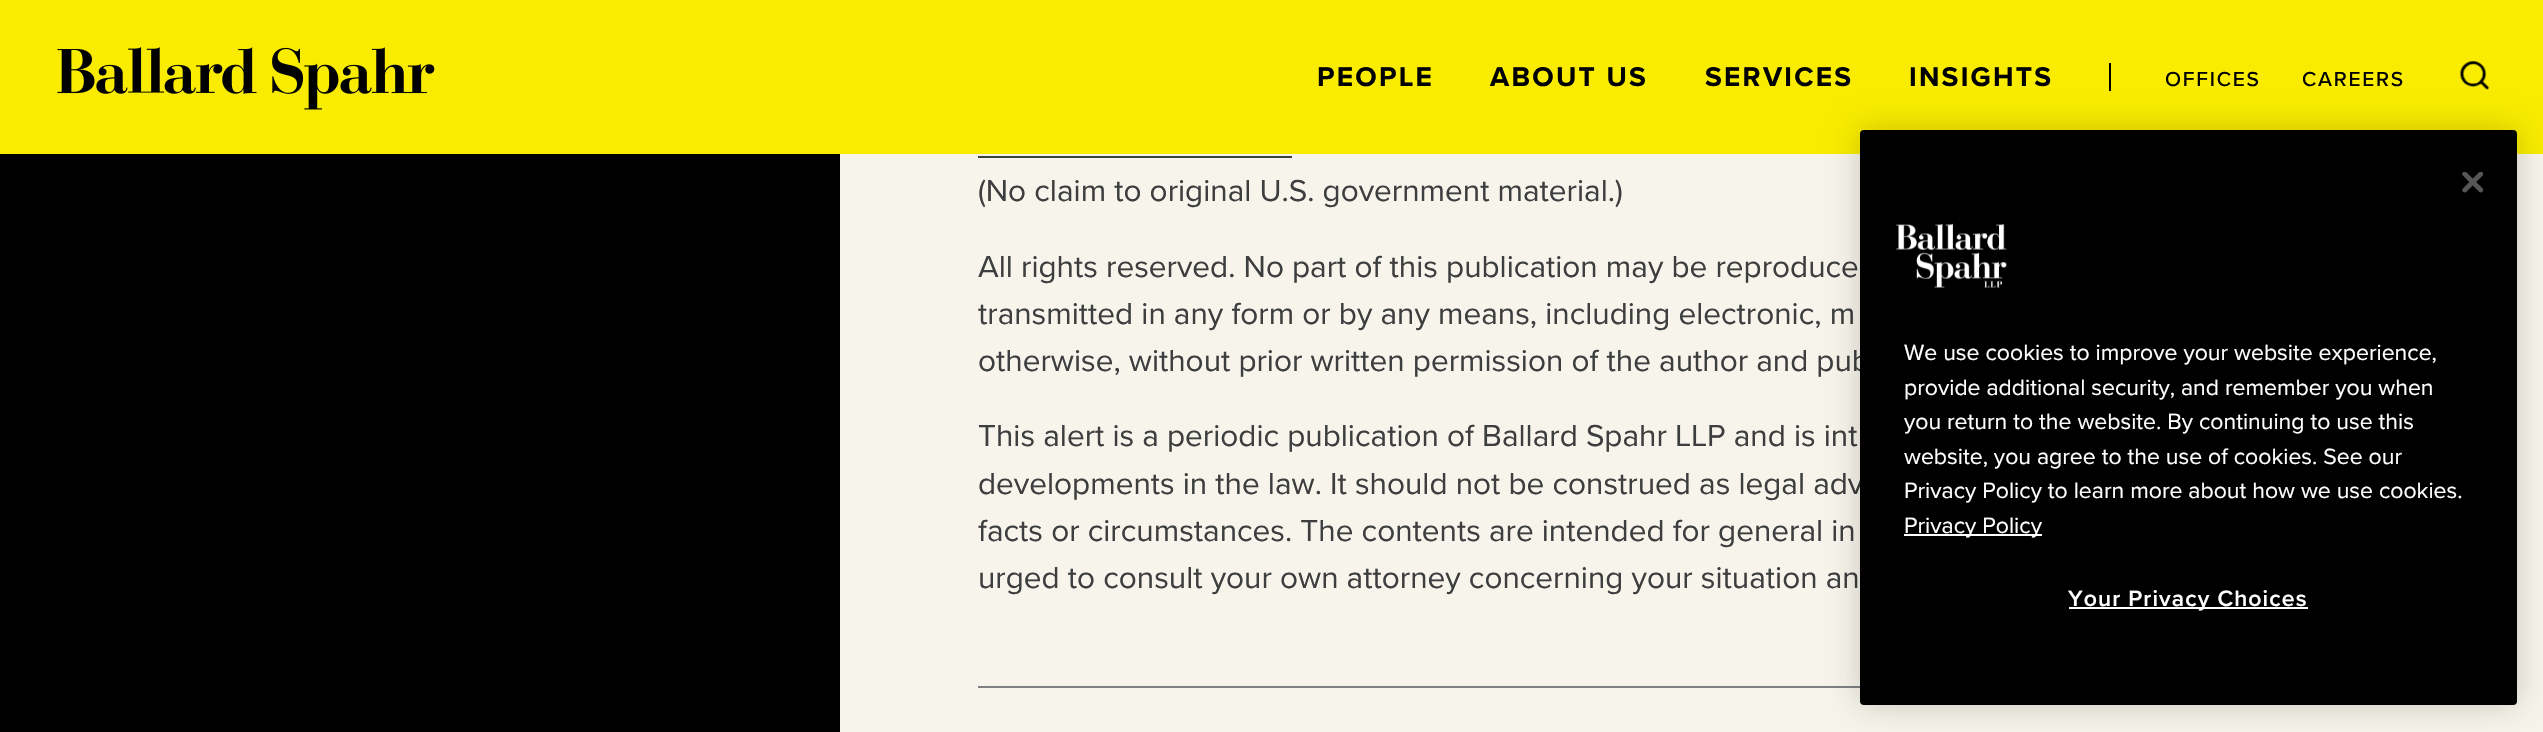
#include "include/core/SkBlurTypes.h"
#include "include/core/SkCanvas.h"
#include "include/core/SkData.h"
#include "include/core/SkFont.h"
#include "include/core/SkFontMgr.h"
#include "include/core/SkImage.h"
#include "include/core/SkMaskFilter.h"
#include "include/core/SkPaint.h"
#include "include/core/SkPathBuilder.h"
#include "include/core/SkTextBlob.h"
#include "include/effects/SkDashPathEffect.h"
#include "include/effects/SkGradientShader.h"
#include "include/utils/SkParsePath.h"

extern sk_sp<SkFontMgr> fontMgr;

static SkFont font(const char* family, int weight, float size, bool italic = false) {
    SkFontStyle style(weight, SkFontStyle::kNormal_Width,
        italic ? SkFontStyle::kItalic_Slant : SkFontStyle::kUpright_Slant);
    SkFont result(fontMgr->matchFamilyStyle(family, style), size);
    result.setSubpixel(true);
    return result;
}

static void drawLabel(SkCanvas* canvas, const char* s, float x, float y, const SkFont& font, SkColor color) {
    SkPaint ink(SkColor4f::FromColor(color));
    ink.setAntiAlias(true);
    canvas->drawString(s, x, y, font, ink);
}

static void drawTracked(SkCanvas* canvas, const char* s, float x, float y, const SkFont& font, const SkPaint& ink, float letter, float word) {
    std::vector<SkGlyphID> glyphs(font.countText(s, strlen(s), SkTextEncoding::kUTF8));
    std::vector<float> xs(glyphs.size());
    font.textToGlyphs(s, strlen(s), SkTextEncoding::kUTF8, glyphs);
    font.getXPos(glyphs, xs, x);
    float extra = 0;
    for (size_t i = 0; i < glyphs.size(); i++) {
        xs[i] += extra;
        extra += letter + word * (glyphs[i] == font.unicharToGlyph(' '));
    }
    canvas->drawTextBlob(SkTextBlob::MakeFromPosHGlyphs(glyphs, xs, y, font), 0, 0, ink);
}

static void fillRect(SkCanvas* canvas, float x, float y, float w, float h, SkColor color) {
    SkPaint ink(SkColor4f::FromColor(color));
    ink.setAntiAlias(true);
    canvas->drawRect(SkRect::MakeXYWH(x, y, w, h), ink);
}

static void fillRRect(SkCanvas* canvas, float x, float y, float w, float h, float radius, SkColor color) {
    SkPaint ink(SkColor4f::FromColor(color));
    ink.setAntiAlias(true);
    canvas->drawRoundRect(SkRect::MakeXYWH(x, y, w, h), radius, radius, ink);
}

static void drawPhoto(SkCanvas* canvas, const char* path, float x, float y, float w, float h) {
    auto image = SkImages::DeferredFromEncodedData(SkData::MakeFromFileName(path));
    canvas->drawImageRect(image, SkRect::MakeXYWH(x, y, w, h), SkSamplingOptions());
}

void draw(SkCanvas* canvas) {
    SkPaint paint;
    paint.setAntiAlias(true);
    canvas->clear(0xFF000000);
    fillRect(canvas, 0, 0, 2543, 154, 0xFFF9EC00);
    drawPhoto(canvas, "assets/img1.png", 57, 47, 378, 63);
    SkFont font1 = font("Proxima Nova", 700, 28);
    paint.setColor(0xFF000000);
    drawTracked(canvas, "PEOPLE", 1317, 86, font1, paint, 2.25f, 0);
    drawTracked(canvas, "ABOUT US", 1490, 86, font1, paint, 2.25f, 0);
    drawTracked(canvas, "SERVICES", 1705, 86, font1, paint, 2.25f, 0);
    drawTracked(canvas, "INSIGHTS", 1909, 86, font1, paint, 2.25f, 0);
    fillRect(canvas, 2109, 63, 2, 28, 0xFF000000);
    SkFont font2 = font("Proxima Nova", 500, 21);
    drawTracked(canvas, "OFFICES", 2165, 86, font2, paint, 1.75f, 0);
    drawTracked(canvas, "CAREERS", 2302, 86, font2, paint, 1.75f, 0);
    drawPhoto(canvas, "assets/img2.png", 2460, 61, 29, 29);
    fillRect(canvas, 840, 154, 1703, 578, 0xFFF7F5EB);
    fillRect(canvas, 978, 156, 314, 2, 0xFF3D3E3F);
    SkFont font3 = font("Proxima Nova", 400, 31.5f);
    drawLabel(canvas, "(No claim to original U.S. government material.)", 978, 201, font3, 0xFF3D3E3F);
    drawLabel(canvas, "All rights reserved. No part of this publication may be reproduce", 978, 277, font3, 0xFF3D3E3F);
    drawLabel(canvas, "transmitted in any form or by any means, including electronic, m", 978, 324, font3, 0xFF3D3E3F);
    drawLabel(canvas, "otherwise, without prior written permission of the author and pub", 978, 371, font3, 0xFF3D3E3F);
    drawLabel(canvas, "This alert is a periodic publication of Ballard Spahr LLP and is int", 978, 446, font3, 0xFF3D3E3F);
    drawLabel(canvas, "developments in the law. It should not be construed as legal adv", 978, 494, font3, 0xFF3D3E3F);
    drawLabel(canvas, "facts or circumstances. The contents are intended for general in", 978, 541, font3, 0xFF3D3E3F);
    drawLabel(canvas, "urged to consult your own attorney concerning your situation an", 978, 588, font3, 0xFF3D3E3F);
    fillRect(canvas, 978, 686, 882, 2, 0xFF7E8082);
    paint.setColor(0x33000000);
    paint.setMaskFilter(SkMaskFilter::MakeBlur(kNormal_SkBlurStyle, 16));
    canvas->drawRoundRect(SkRect::MakeXYWH(1860, 130, 657, 575), 4, 4, paint);
    paint.setMaskFilter(nullptr);
    fillRRect(canvas, 1860, 130, 657, 575, 4, 0xFF000000);
    drawPhoto(canvas, "assets/img3.png", 2462, 172, 21, 21);
    drawPhoto(canvas, "assets/img4.png", 1896, 223, 111, 65);
    SkFont font4 = font("Proxima Nova", 400, 23);
    drawLabel(canvas, "We use cookies to improve your website experience,", 1904, 360, font4, 0xFFFFFFFF);
    drawLabel(canvas, "provide additional security, and remember you when", 1904, 395, font4, 0xFFFFFFFF);
    drawLabel(canvas, "you return to the website. By continuing to use this", 1904, 429, font4, 0xFFFFFFFF);
    drawLabel(canvas, "website, you agree to the use of cookies. See our", 1904, 464, font4, 0xFFFFFFFF);
    drawLabel(canvas, "Privacy Policy to learn more about how we use cookies.", 1904, 498, font4, 0xFFFFFFFF);
    fillRect(canvas, 1904, 534, 138, 2, 0xFFFFFFFF);
    drawLabel(canvas, "Privacy Policy", 1904, 533, font4, 0xFFFFFFFF);
    fillRect(canvas, 2069, 607, 239, 2, 0xFFFFFFFF);
    SkFont font5 = font("Proxima Nova", 600, 23);
    paint.setColor(0xFFFFFFFF);
    drawTracked(canvas, "Your Privacy Choices", 2068, 606, font5, paint, 1.1f, 0);
}
